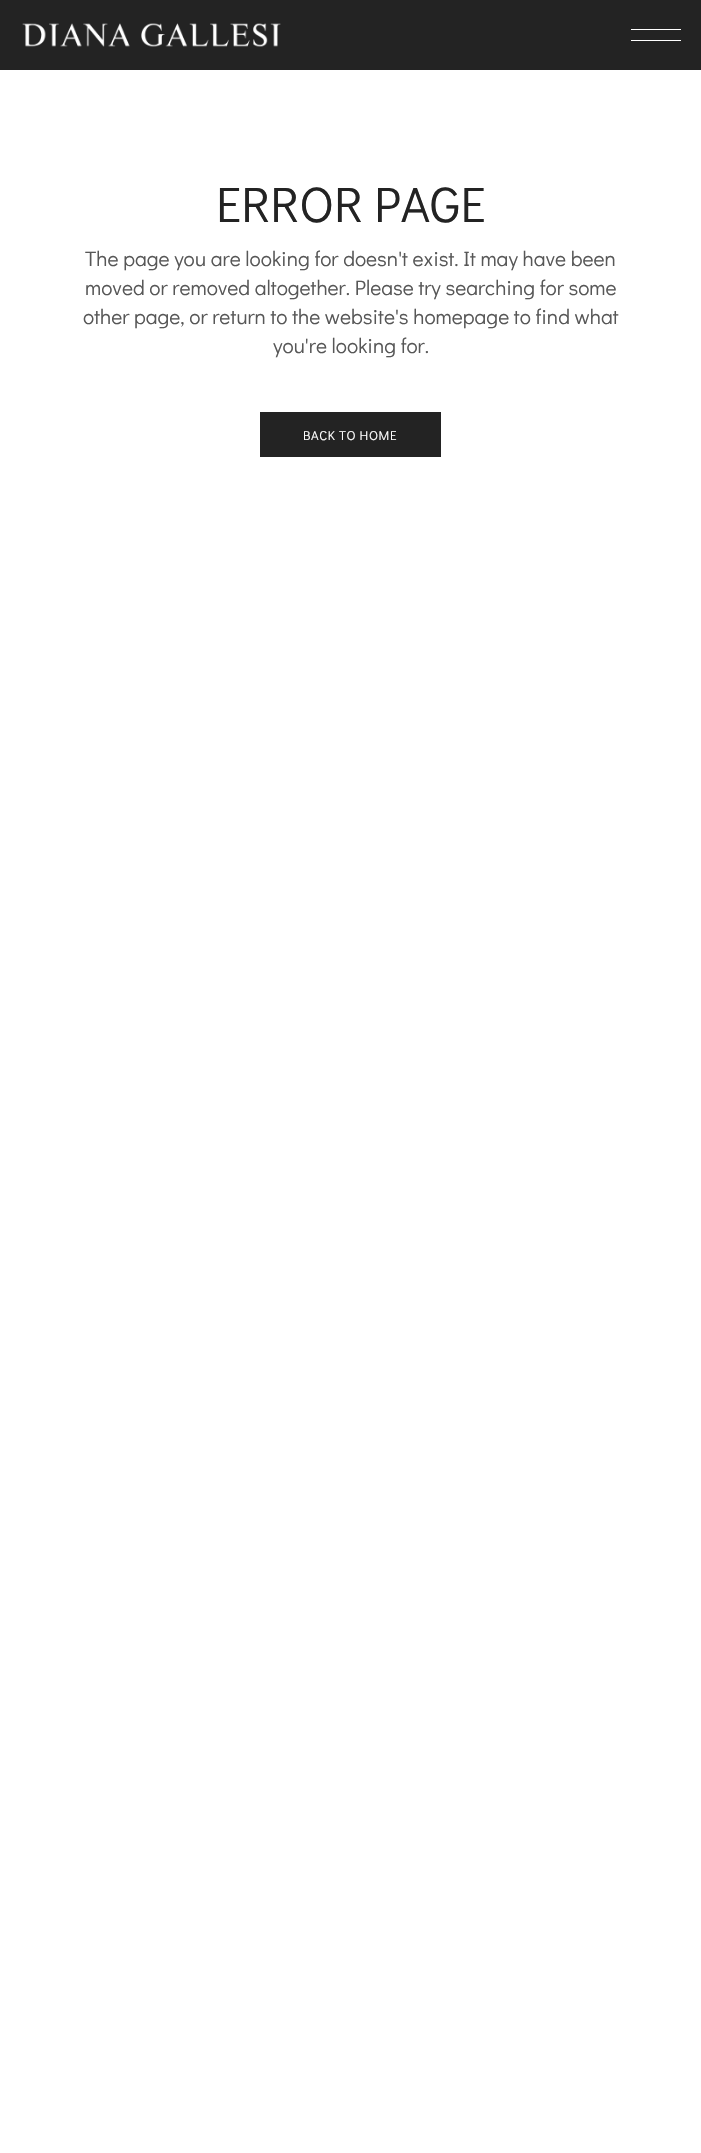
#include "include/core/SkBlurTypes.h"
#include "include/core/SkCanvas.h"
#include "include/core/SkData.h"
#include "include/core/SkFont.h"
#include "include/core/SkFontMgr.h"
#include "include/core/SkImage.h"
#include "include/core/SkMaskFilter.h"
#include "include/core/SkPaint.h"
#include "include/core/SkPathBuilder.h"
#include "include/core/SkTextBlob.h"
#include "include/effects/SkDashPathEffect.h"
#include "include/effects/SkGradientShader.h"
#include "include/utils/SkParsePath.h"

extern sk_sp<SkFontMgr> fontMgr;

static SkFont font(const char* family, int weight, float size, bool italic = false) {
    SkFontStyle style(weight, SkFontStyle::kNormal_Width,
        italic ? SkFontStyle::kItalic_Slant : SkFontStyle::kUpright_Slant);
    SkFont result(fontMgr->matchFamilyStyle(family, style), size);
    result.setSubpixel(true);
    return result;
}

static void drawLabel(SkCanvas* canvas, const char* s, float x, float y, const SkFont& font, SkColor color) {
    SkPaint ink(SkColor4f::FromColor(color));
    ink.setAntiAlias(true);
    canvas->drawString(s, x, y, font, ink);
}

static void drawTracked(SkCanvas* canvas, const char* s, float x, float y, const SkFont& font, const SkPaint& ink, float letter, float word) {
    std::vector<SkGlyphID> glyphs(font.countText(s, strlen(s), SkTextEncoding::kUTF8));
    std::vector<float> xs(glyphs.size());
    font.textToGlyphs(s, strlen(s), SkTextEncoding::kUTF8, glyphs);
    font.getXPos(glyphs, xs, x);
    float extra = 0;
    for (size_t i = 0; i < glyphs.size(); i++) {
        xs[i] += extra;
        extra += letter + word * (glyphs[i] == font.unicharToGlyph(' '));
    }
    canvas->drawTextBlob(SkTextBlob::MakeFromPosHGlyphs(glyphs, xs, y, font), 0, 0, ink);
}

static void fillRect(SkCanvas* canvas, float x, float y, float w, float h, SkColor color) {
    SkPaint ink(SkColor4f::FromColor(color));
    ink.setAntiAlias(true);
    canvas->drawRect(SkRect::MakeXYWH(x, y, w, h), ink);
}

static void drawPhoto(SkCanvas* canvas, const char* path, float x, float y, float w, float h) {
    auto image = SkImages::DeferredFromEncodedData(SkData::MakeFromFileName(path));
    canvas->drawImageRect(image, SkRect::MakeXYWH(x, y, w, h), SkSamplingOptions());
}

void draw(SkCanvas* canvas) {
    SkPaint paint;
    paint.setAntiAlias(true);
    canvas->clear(0xFFFFFFFF);
    fillRect(canvas, 0, 0, 701, 70, 0xFF232323);
    drawPhoto(canvas, "assets/img1.png", 22, 23, 259, 24);
    fillRect(canvas, 631, 29, 50, 1, 0xFFFFFFFF);
    fillRect(canvas, 631, 40, 50, 1, 0xFFFFFFFF);
    SkFont font1 = font("Didact Gothic", 400, 50);
    drawLabel(canvas, "ERROR PAGE", 216, 222, font1, 0xFF232323);
    SkFont font2 = font("Didact Gothic", 400, 21);
    drawLabel(canvas, "The page you are looking for doesn't exist. It may have been", 85, 266, font2, 0xFF575757);
    drawLabel(canvas, "moved or removed altogether. Please try searching for some", 85, 295, font2, 0xFF575757);
    drawLabel(canvas, "other page, or return to the website's homepage to find what", 83, 324, font2, 0xFF575757);
    drawLabel(canvas, "you're looking for.", 273, 353, font2, 0xFF575757);
    fillRect(canvas, 260, 412, 181, 45, 0xFF232323);
    SkFont font3 = font("Didact Gothic", 400, 13);
    paint.setColor(0xFFFFFFFF);
    drawTracked(canvas, "BACK TO HOME", 303, 440, font3, paint, 0.6f, 0);
}
